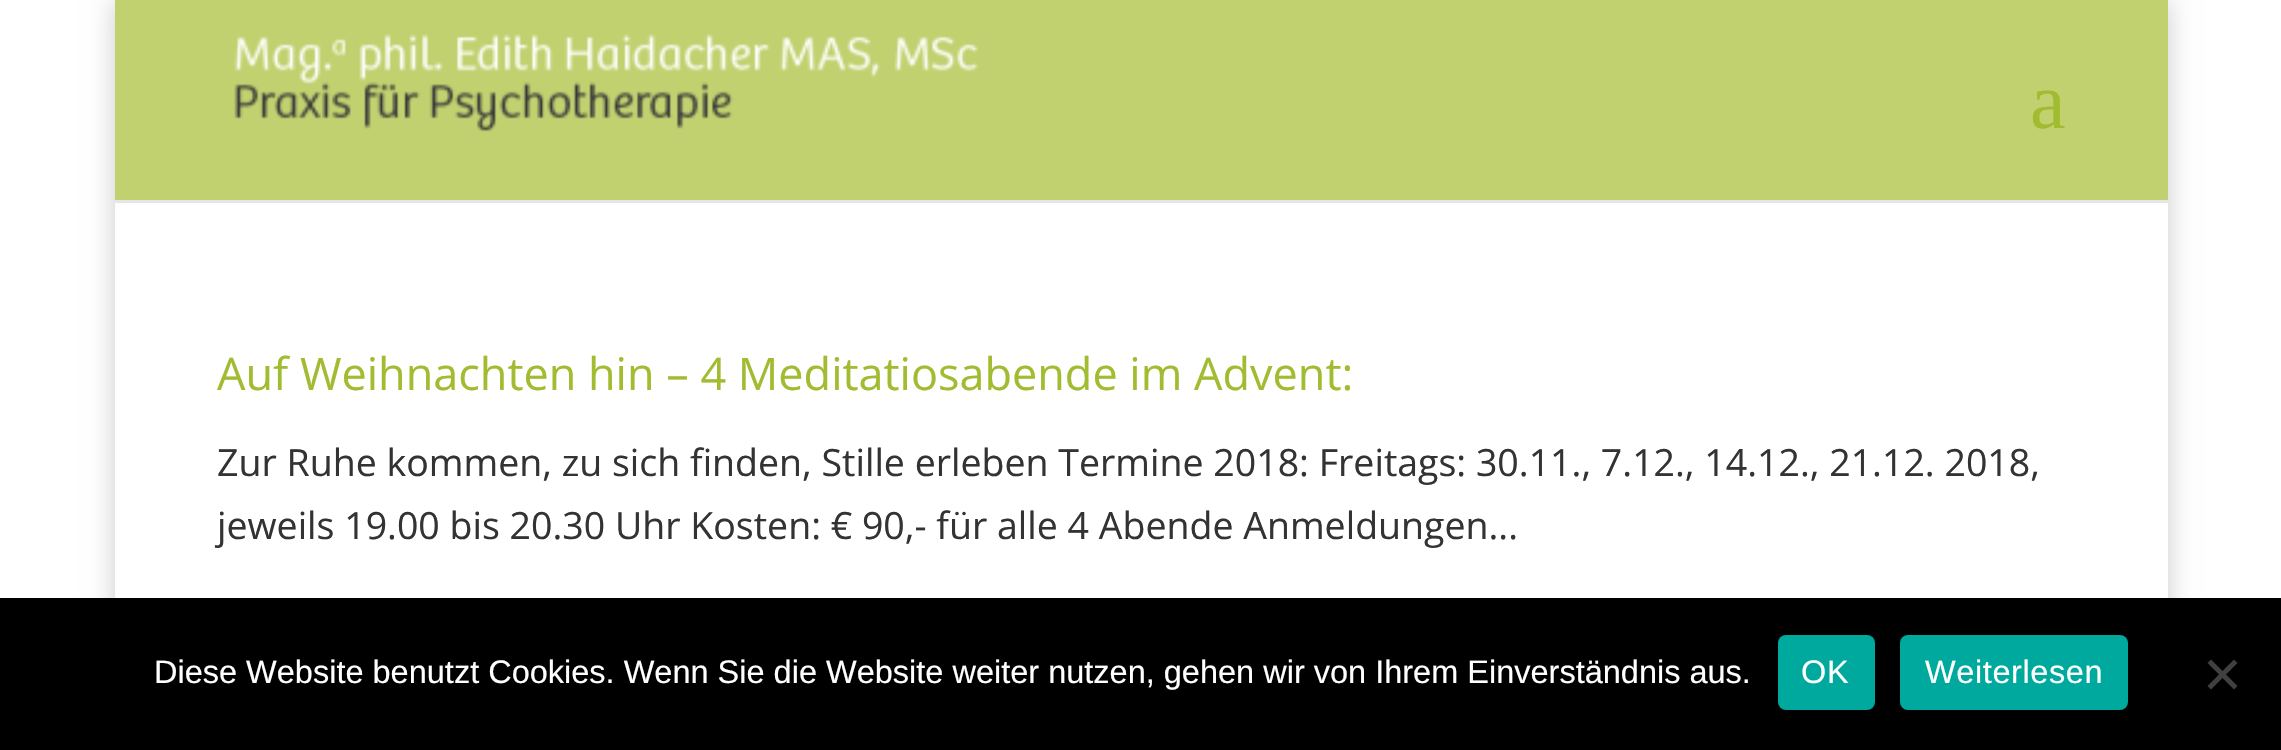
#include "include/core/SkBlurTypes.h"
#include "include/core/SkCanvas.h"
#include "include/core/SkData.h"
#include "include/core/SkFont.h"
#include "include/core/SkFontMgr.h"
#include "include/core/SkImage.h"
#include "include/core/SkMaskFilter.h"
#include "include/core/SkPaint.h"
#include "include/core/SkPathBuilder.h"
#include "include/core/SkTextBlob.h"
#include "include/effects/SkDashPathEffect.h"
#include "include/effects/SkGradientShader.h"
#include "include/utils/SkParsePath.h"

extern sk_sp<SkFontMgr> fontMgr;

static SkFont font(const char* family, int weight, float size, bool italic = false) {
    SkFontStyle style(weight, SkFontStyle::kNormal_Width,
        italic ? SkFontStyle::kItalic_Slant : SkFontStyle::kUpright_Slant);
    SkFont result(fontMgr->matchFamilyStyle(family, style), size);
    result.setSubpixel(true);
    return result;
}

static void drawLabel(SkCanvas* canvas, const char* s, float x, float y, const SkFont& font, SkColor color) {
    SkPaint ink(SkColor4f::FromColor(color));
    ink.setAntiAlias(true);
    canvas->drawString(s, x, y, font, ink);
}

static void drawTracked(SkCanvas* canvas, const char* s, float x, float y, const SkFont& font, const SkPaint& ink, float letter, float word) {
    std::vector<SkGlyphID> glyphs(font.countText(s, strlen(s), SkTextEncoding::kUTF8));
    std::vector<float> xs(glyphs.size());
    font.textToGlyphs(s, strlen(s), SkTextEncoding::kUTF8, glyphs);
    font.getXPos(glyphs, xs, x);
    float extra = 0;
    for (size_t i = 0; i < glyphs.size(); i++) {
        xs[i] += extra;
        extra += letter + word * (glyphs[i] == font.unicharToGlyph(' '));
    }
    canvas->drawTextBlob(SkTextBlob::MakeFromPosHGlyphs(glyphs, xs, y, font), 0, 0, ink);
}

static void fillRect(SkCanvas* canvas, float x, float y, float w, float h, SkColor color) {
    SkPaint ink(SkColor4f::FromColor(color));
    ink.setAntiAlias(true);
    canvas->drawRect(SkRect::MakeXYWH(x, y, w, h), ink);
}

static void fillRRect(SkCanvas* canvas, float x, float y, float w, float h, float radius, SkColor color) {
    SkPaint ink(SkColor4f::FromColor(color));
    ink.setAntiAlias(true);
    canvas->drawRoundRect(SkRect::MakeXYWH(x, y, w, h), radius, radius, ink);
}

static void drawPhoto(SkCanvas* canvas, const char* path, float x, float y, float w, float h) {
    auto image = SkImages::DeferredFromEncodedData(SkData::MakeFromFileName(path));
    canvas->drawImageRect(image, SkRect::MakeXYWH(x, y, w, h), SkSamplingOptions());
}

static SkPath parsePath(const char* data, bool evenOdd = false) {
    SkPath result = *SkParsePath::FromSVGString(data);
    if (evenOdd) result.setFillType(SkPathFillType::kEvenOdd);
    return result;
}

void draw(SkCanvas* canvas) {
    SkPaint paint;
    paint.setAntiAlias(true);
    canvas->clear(0xFFFFFFFF);
    paint.setColor(0x33000000);
    paint.setMaskFilter(SkMaskFilter::MakeBlur(kNormal_SkBlurStyle, 12.5f));
    canvas->drawRect(SkRect::MakeXYWH(115, 0, 2053, 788), paint);
    paint.setMaskFilter(nullptr);
    paint.setColor(0xFFE6E6E6);
    canvas->drawPath(parsePath("M115 200V203H2168V3V200Z"), paint);
    fillRect(canvas, 115, 0, 2053, 200, 0xFFC2D170);
    drawPhoto(canvas, "assets/img1.png", 234, 34, 744, 98);
    SkFont font1 = font("Liberation Serif", 400, 80);
    drawLabel(canvas, "a", 2030, 128, font1, 0xFFA1BC30);
    fillRect(canvas, 115, 203, 2053, 395, 0xFFFFFFFF);
    SkFont font2 = font("Open Sans", 400, 45);
    drawLabel(canvas, "Auf Weihnachten hin – 4 Meditatiosabende im Advent:", 217, 390, font2, 0xFFA1BC30);
    SkFont font3 = font("Open Sans", 400, 37.5f);
    drawLabel(canvas, "Zur Ruhe kommen, zu sich finden, Stille erleben Termine 2018: Freitags: 30.11., 7.12., 14.12., 21.12. 2018,", 217, 476, font3, 0xFF333333);
    drawLabel(canvas, "jeweils 19.00 bis 20.30 Uhr Kosten: € 90,- für alle 4 Abende Anmeldungen...", 217, 539, font3, 0xFF333333);
    fillRect(canvas, 0, 598, 2281, 152, 0xFF000000);
    SkFont font4 = font("Liberation Sans", 400, 32.5f);
    drawLabel(canvas, "Diese Website benutzt Cookies. Wenn Sie die Website weiter nutzen, gehen wir von Ihrem Einverständnis aus.", 154, 683, font4, 0xFFFFFFFF);
    fillRRect(canvas, 1778, 635, 97, 75, 8, 0xFF00A99D);
    paint.setColor(0xFFFFFFFF);
    drawTracked(canvas, "OK", 1801, 683, font4, paint, 0.6f, 0);
    fillRRect(canvas, 1900, 635, 228, 75, 8, 0xFF00A99D);
    drawTracked(canvas, "Weiterlesen", 1925, 683, font4, paint, 0.6f, 0);
    paint.setColor(0xFF404040);
    canvas->drawPath(parsePath("M2234 659.5L2237.5 663L2211 689.5L2207.5 686Z"), paint);
    canvas->drawPath(parsePath("M2207.5 663L2211 659.5L2237.5 686L2234 689.5Z"), paint);
}
